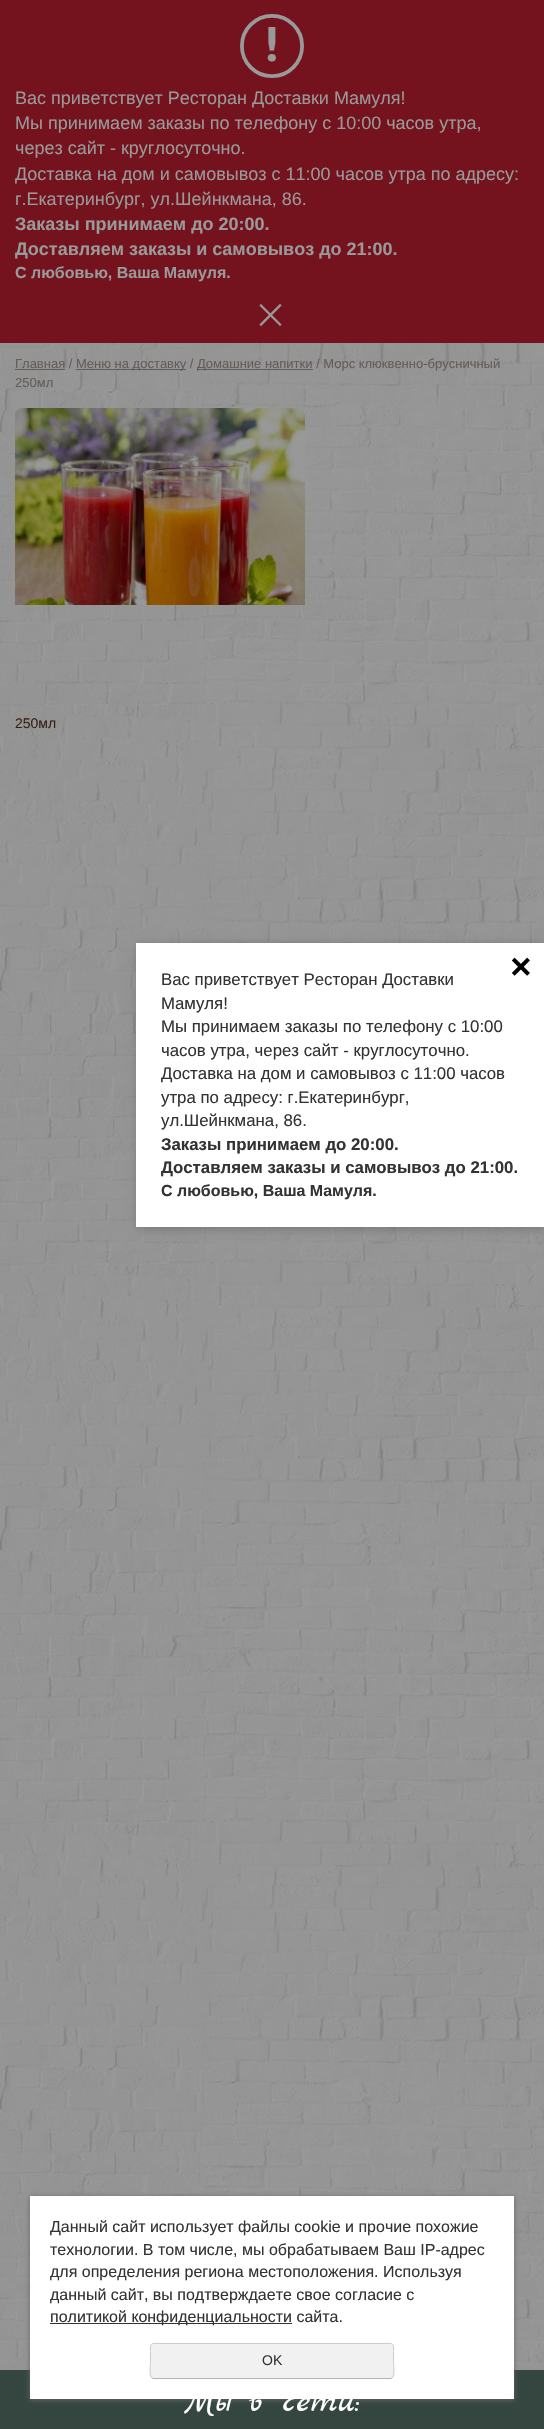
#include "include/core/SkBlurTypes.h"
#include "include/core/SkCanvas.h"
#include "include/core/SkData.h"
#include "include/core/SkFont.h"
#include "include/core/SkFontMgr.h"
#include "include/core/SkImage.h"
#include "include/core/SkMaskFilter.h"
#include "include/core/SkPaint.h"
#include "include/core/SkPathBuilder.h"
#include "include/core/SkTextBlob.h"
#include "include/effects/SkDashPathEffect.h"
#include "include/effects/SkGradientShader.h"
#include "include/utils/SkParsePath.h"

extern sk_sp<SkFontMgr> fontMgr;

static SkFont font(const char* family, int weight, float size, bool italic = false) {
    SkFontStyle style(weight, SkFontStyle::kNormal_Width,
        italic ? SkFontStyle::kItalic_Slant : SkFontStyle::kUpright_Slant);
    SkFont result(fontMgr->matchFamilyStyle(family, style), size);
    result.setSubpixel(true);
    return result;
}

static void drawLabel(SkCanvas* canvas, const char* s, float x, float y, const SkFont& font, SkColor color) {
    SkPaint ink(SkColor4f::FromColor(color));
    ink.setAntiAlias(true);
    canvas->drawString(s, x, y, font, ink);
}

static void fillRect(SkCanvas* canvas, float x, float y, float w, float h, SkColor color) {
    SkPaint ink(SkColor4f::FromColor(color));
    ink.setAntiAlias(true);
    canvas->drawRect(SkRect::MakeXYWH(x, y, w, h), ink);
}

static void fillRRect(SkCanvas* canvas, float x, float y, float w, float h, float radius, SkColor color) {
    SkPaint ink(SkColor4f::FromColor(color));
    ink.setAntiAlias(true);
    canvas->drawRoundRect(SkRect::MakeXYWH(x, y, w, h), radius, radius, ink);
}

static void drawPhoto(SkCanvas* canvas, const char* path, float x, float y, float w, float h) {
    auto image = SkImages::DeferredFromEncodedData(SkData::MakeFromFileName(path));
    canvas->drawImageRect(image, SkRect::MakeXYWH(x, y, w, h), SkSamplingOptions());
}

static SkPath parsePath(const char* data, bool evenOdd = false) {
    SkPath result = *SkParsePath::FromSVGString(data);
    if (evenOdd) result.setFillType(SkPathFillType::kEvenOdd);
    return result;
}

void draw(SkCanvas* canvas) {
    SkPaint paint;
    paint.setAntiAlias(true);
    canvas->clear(0xFFFFFFFF);
    drawPhoto(canvas, "assets/img1.png", 0, 343, 544, 2027);
    fillRect(canvas, 0, 0, 544, 343, 0xFF74131D);
    drawPhoto(canvas, "assets/img2.png", 240, 14, 64, 64);
    SkFont font1 = font("Liberation Sans", 400, 18);
    drawLabel(canvas, "Вас приветствует Ресторан Доставки Мамуля!", 15, 104, font1, 0xFF999999);
    drawLabel(canvas, "Мы принимаем заказы по телефону с 10:00 часов утра,", 15, 129, font1, 0xFF999999);
    drawLabel(canvas, "через сайт - круглосуточно.", 15, 154, font1, 0xFF999999);
    drawLabel(canvas, "Доставка на дом и самовывоз с 11:00 часов утра по адресу:", 15, 180, font1, 0xFF999999);
    drawLabel(canvas, "г.Екатеринбург, ул.Шейнкмана, 86.", 15, 205, font1, 0xFF999999);
    SkFont font2 = font("Liberation Sans", 700, 18);
    drawLabel(canvas, "Заказы принимаем до 20:00.", 15, 230, font2, 0xFF999999);
    drawLabel(canvas, "Доставляем заказы и самовывоз до 21:00.", 15, 255, font2, 0xFF999999);
    SkFont font3 = font("Liberation Sans", 700, 16);
    drawLabel(canvas, "С любовью, Ваша Мамуля.", 15, 278, font3, 0xFF999999);
    paint.setStroke(true);
    paint.setStrokeWidth(2.3f);
    paint.setStrokeCap(SkPaint::kSquare_Cap);
    paint.setColor(0xFF999999);
    canvas->drawPath(parsePath("M261 305.5L280 324.5M280 305.5L261 324.5"), paint);
    SkFont font4 = font("Liberation Sans", 400, 13);
    drawLabel(canvas, "Главная /", 15, 368, font4, 0xFF645C58);
    fillRect(canvas, 15, 369, 50, 1, 0xFF645C58);
    fillRect(canvas, 76, 369, 110, 1, 0xFF645C58);
    drawLabel(canvas, "Меню на доставку /", 76, 368, font4, 0xFF645C58);
    fillRect(canvas, 197, 369, 116, 1, 0xFF645C58);
    drawLabel(canvas, "Домашние напитки / Морс клюквенно-брусничный", 197, 368, font4, 0xFF645C58);
    drawLabel(canvas, "250мл", 15, 387, font4, 0xFF645C58);
    drawPhoto(canvas, "assets/img3.png", 15, 408, 290, 197);
    SkFont font5 = font("Liberation Sans", 400, 14);
    drawLabel(canvas, "250мл", 15, 728, font5, 0xFF372218);
    fillRect(canvas, 136, 943, 408, 284, 0xFFFFFFFF);
    canvas->save();
    canvas->clipPath(parsePath("M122 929H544V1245H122ZM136 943H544V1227H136Z", true), true);
    paint.setStroke(false);
    paint.setColor(0x33000000);
    paint.setMaskFilter(SkMaskFilter::MakeBlur(kNormal_SkBlurStyle, 5));
    canvas->drawRect(SkRect::MakeXYWH(138, 945, 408, 284), paint);
    paint.setMaskFilter(nullptr);
    canvas->restore();
    drawPhoto(canvas, "assets/img4.png", 511, 957, 19, 19);
    SkFont font6 = font("Liberation Sans", 400, 16.8f);
    drawLabel(canvas, "Вас приветствует Ресторан Доставки", 161, 985, font6, 0xFF333333);
    drawLabel(canvas, "Мамуля!", 161, 1009, font6, 0xFF333333);
    drawLabel(canvas, "Мы принимаем заказы по телефону с 10:00", 161, 1032, font6, 0xFF333333);
    drawLabel(canvas, "часов утра, через сайт - круглосуточно.", 161, 1056, font6, 0xFF333333);
    drawLabel(canvas, "Доставка на дом и самовывоз с 11:00 часов", 161, 1079, font6, 0xFF333333);
    drawLabel(canvas, "утра по адресу: г.Екатеринбург,", 161, 1103, font6, 0xFF333333);
    drawLabel(canvas, "ул.Шейнкмана, 86.", 161, 1126, font6, 0xFF333333);
    SkFont font7 = font("Liberation Sans", 700, 16.8f);
    drawLabel(canvas, "Заказы принимаем до 20:00.", 161, 1150, font7, 0xFF333333);
    drawLabel(canvas, "Доставляем заказы и самовывоз до 21:00.", 161, 1173, font7, 0xFF333333);
    drawLabel(canvas, "С любовью, Ваша Мамуля.", 161, 1196, font3, 0xFF333333);
    fillRect(canvas, 0, 2370, 544, 59, 0xFF354640);
    paint.setColor(0xFF666666);
    paint.setMaskFilter(SkMaskFilter::MakeBlur(kNormal_SkBlurStyle, 2.5f));
    canvas->drawRect(SkRect::MakeXYWH(30, 2197, 484, 203), paint);
    paint.setMaskFilter(nullptr);
    fillRect(canvas, 30, 2196, 484, 203, 0xFFFFFFFF);
    SkFont font8 = font("Liberation Sans", 400, 16);
    drawLabel(canvas, "Данный сайт использует файлы cookie и прочие похожие", 50, 2232, font8, 0xFF333333);
    drawLabel(canvas, "технологии. В том числе, мы обрабатываем Ваш IP-адрес", 50, 2255, font8, 0xFF333333);
    drawLabel(canvas, "для определения региона местоположения. Используя", 50, 2277, font8, 0xFF333333);
    drawLabel(canvas, "данный сайт, вы подтверждаете свое согласие с", 50, 2300, font8, 0xFF333333);
    fillRect(canvas, 50, 2323, 242, 1, 0xFF333333);
    drawLabel(canvas, "политикой конфиденциальности сайта.", 50, 2322, font8, 0xFF333333);
    fillRRect(canvas, 150, 2343, 244, 36, 4, 0xFFF1F1F1);
    paint.setStroke(true);
    paint.setStrokeWidth(1);
    paint.setStrokeCap(SkPaint::kButt_Cap);
    paint.setColor(0xFFB3B3B3);
    canvas->drawPath(parsePath("M392.5 2377.5C392 2378 391 2378.5 390 2378.5H154C153 2378.5 152 2378 151.5 2377.5"), paint);
    paint.setColor(0xFFCCCCCC);
    canvas->drawPath(parsePath("M151.5 2377.5C149 2375 150.5 2364 150.5 2361V2351.5C150.5 2349 149.5 2343.5 154 2343.5H390C394.5 2343.5 393.5 2349 393.5 2351.5V2361C393.5 2364 395 2375 392.5 2377.5"), paint);
    drawLabel(canvas, "OK", 262, 2365, font5, 0xFF333333);
    SkFont font9 = font("Marck Script", 400, 36);
    drawLabel(canvas, "Мы в сети:", 184, 2411, font9, 0xFFFFFFFF);
}
